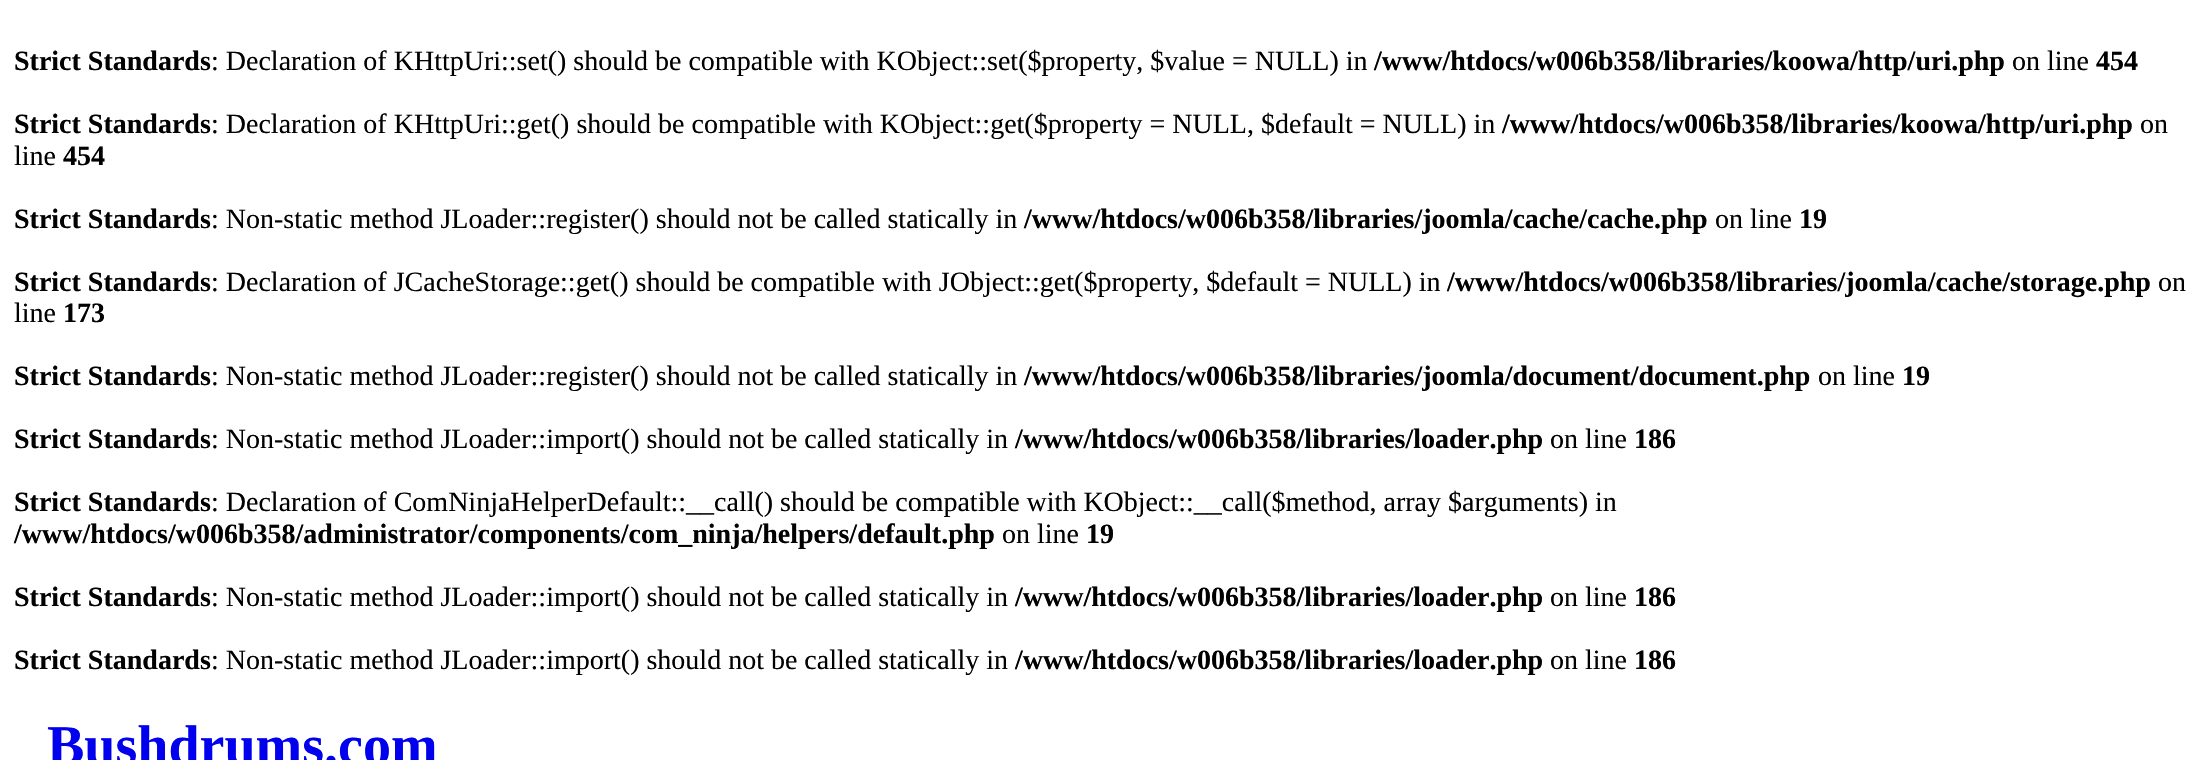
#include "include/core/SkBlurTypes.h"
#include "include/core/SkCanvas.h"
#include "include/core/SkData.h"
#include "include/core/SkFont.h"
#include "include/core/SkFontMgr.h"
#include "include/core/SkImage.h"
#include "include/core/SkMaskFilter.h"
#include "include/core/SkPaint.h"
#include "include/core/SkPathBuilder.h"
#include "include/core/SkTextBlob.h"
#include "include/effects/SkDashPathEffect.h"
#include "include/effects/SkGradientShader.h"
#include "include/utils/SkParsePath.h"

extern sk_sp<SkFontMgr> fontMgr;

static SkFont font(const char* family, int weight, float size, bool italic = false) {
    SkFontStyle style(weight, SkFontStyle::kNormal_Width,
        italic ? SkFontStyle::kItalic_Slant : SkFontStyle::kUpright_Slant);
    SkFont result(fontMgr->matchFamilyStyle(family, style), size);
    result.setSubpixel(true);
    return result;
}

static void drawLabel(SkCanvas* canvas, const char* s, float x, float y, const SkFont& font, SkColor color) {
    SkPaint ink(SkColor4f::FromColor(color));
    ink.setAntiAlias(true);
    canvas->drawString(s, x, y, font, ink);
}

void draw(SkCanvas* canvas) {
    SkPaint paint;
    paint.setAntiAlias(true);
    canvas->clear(0xFFFFFFFF);
    SkFont font1 = font("Liberation Serif", 700, 28);
    drawLabel(canvas, "Strict Standards", 14, 70, font1, 0xFF000000);
    SkFont font2 = font("Liberation Serif", 400, 28);
    drawLabel(canvas, ": Declaration of KHttpUri::set() should be compatible with KObject::set($property, $value = NULL) in", 211, 70, font2, 0xFF000000);
    drawLabel(canvas, "/www/htdocs/w006b358/libraries/koowa/http/uri.php", 1374, 70, font1, 0xFF000000);
    drawLabel(canvas, "on line", 2012, 70, font2, 0xFF000000);
    drawLabel(canvas, "454", 2096, 70, font1, 0xFF000000);
    drawLabel(canvas, "Strict Standards", 14, 133, font1, 0xFF000000);
    drawLabel(canvas, ": Declaration of KHttpUri::get() should be compatible with KObject::get($property = NULL, $default = NULL) in", 211, 133, font2, 0xFF000000);
    drawLabel(canvas, "/www/htdocs/w006b358/libraries/koowa/http/uri.php", 1502, 133, font1, 0xFF000000);
    drawLabel(canvas, "on", 2140, 133, font2, 0xFF000000);
    drawLabel(canvas, "line", 14, 165, font2, 0xFF000000);
    drawLabel(canvas, "454", 63, 165, font1, 0xFF000000);
    drawLabel(canvas, "Strict Standards", 14, 228, font1, 0xFF000000);
    drawLabel(canvas, ": Non-static method JLoader::register() should not be called statically in", 211, 228, font2, 0xFF000000);
    drawLabel(canvas, "/www/htdocs/w006b358/libraries/joomla/cache/cache.php", 1024, 228, font1, 0xFF000000);
    drawLabel(canvas, "on line", 1715, 228, font2, 0xFF000000);
    drawLabel(canvas, "19", 1799, 228, font1, 0xFF000000);
    drawLabel(canvas, "Strict Standards", 14, 291, font1, 0xFF000000);
    drawLabel(canvas, ": Declaration of JCacheStorage::get() should be compatible with JObject::get($property, $default = NULL) in", 211, 291, font2, 0xFF000000);
    drawLabel(canvas, "/www/htdocs/w006b358/libraries/joomla/cache/storage.php", 1447, 291, font1, 0xFF000000);
    drawLabel(canvas, "on", 2158, 291, font2, 0xFF000000);
    drawLabel(canvas, "line", 14, 322, font2, 0xFF000000);
    drawLabel(canvas, "173", 63, 322, font1, 0xFF000000);
    drawLabel(canvas, "Strict Standards", 14, 385, font1, 0xFF000000);
    drawLabel(canvas, ": Non-static method JLoader::register() should not be called statically in", 211, 385, font2, 0xFF000000);
    drawLabel(canvas, "/www/htdocs/w006b358/libraries/joomla/document/document.php", 1024, 385, font1, 0xFF000000);
    drawLabel(canvas, "on line", 1818, 385, font2, 0xFF000000);
    drawLabel(canvas, "19", 1902, 385, font1, 0xFF000000);
    drawLabel(canvas, "Strict Standards", 14, 448, font1, 0xFF000000);
    drawLabel(canvas, ": Non-static method JLoader::import() should not be called statically in", 211, 448, font2, 0xFF000000);
    drawLabel(canvas, "/www/htdocs/w006b358/libraries/loader.php", 1015, 448, font1, 0xFF000000);
    drawLabel(canvas, "on line", 1550, 448, font2, 0xFF000000);
    drawLabel(canvas, "186", 1634, 448, font1, 0xFF000000);
    drawLabel(canvas, "Strict Standards", 14, 511, font1, 0xFF000000);
    drawLabel(canvas, ": Declaration of ComNinjaHelperDefault::__call() should be compatible with KObject::__call($method, array $arguments) in", 211, 511, font2, 0xFF000000);
    drawLabel(canvas, "/www/htdocs/w006b358/administrator/components/com_ninja/helpers/default.php", 14, 543, font1, 0xFF000000);
    drawLabel(canvas, "on line", 1002, 543, font2, 0xFF000000);
    drawLabel(canvas, "19", 1086, 543, font1, 0xFF000000);
    drawLabel(canvas, "Strict Standards", 14, 606, font1, 0xFF000000);
    drawLabel(canvas, ": Non-static method JLoader::import() should not be called statically in", 211, 606, font2, 0xFF000000);
    drawLabel(canvas, "/www/htdocs/w006b358/libraries/loader.php", 1015, 606, font1, 0xFF000000);
    drawLabel(canvas, "on line", 1550, 606, font2, 0xFF000000);
    drawLabel(canvas, "186", 1634, 606, font1, 0xFF000000);
    drawLabel(canvas, "Strict Standards", 14, 669, font1, 0xFF000000);
    drawLabel(canvas, ": Non-static method JLoader::import() should not be called statically in", 211, 669, font2, 0xFF000000);
    drawLabel(canvas, "/www/htdocs/w006b358/libraries/loader.php", 1015, 669, font1, 0xFF000000);
    drawLabel(canvas, "on line", 1550, 669, font2, 0xFF000000);
    drawLabel(canvas, "186", 1634, 669, font1, 0xFF000000);
    SkFont font3 = font("Liberation Serif", 700, 56);
    drawLabel(canvas, "Bushdrums.com", 47, 764, font3, 0xFF0000EE);
}
